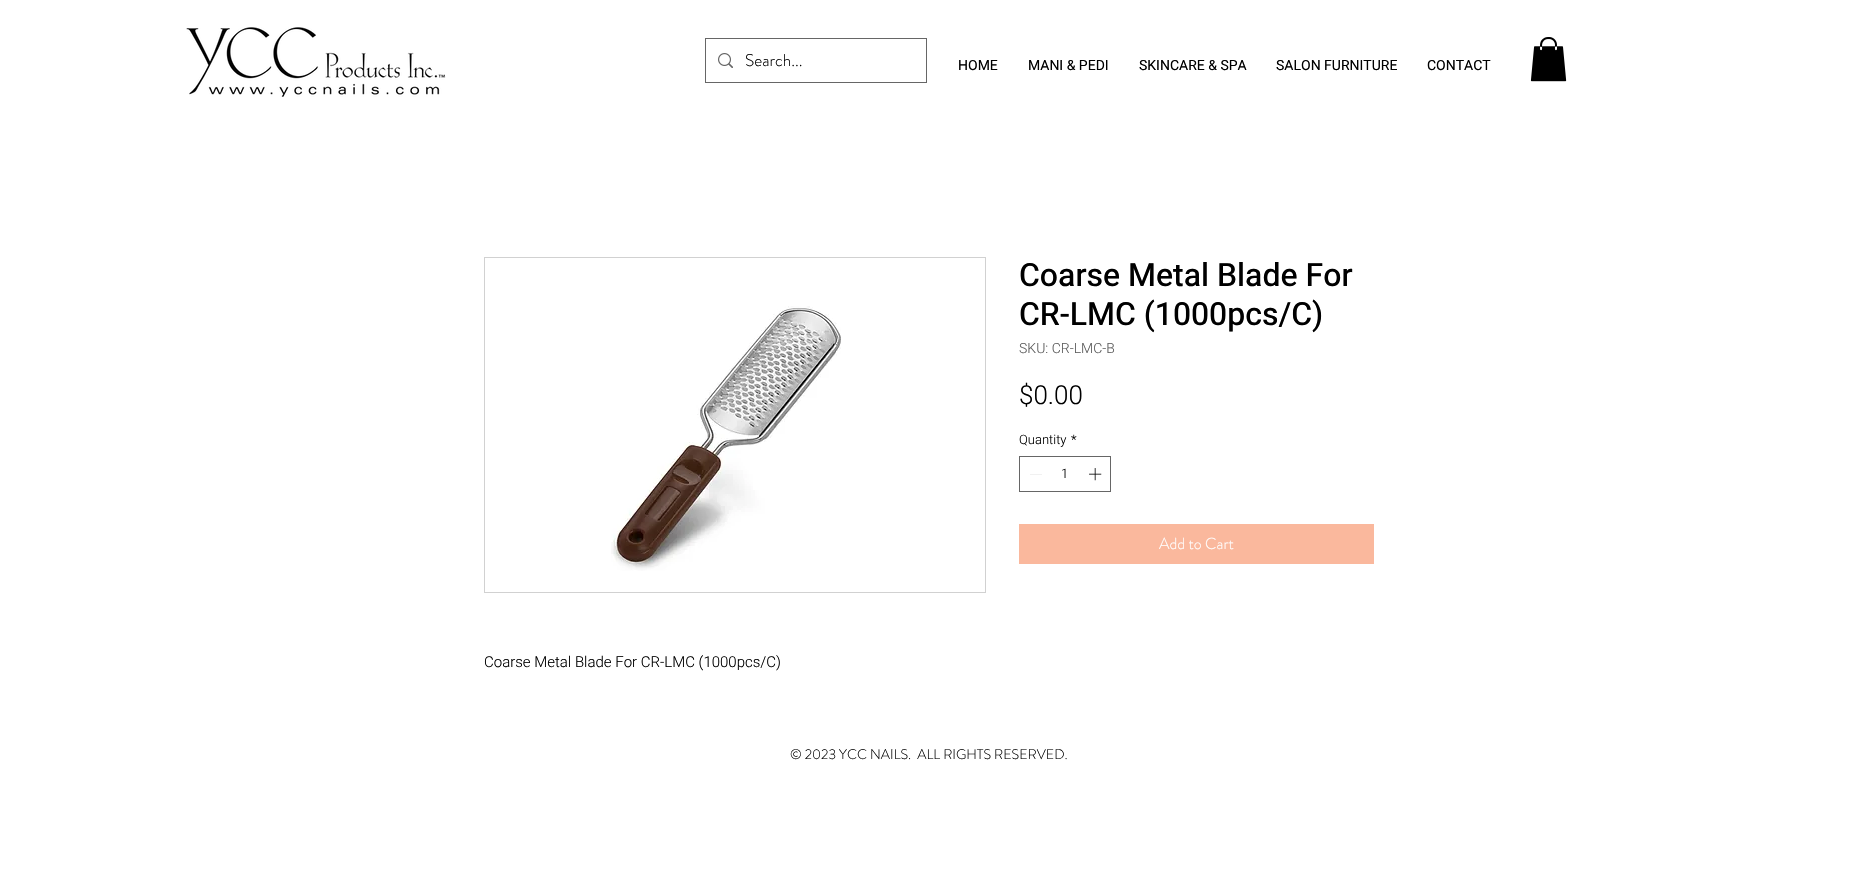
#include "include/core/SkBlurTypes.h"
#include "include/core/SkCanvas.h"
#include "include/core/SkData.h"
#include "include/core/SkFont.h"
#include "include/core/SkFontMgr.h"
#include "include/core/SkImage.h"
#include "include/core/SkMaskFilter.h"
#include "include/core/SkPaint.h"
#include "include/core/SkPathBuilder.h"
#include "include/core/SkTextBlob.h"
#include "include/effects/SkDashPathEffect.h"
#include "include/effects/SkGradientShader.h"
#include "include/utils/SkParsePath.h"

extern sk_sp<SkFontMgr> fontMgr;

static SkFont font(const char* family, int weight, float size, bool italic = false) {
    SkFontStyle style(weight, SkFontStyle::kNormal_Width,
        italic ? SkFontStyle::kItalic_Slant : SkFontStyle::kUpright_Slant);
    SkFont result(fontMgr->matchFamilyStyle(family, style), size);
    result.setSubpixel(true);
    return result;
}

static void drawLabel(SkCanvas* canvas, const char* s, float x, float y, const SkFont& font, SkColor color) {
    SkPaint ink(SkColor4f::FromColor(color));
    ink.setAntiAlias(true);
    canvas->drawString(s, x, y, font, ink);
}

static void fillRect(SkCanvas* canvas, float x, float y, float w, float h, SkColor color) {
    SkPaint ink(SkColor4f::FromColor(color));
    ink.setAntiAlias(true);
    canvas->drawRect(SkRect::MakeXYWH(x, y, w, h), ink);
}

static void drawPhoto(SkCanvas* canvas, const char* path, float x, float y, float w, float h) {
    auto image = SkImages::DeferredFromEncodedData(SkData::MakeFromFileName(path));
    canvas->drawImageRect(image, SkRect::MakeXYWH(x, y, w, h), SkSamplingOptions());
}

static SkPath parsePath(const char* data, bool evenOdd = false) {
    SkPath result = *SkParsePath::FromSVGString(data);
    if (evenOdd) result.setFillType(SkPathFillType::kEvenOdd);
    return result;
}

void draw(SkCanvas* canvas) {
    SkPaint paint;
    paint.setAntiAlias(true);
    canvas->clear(0xFFFFFFFF);
    drawPhoto(canvas, "assets/img1.png", 186, 27, 260, 70);
    paint.setStroke(true);
    paint.setStrokeWidth(1);
    paint.setColor(0xFF666666);
    canvas->drawRect(SkRect::MakeXYWH(705.5f, 38.5f, 221, 44), paint);
    drawPhoto(canvas, "assets/img2.png", 718, 53, 15, 15);
    SkFont font1 = font("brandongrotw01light", 300, 17);
    drawLabel(canvas, "Search...", 745, 66, font1, 0xFF000000);
    SkFont font2 = font("Heebo", 400, 14);
    drawLabel(canvas, "HOME", 958, 70, font2, 0xFF000000);
    drawLabel(canvas, "MANI & PEDI", 1028, 70, font2, 0xFF000000);
    drawLabel(canvas, "SKINCARE & SPA", 1139, 70, font2, 0xFF000000);
    drawLabel(canvas, "SALON FURNITURE", 1276, 70, font2, 0xFF000000);
    drawLabel(canvas, "CONTACT", 1427, 70, font2, 0xFF000000);
    drawPhoto(canvas, "assets/img3.png", 1530, 37, 37, 45);
    SkFont font3 = font("Heebo", 500, 32);
    drawLabel(canvas, "Coarse Metal Blade For", 1019, 286, font3, 0xFF000000);
    drawLabel(canvas, "CR-LMC (1000pcs/C)", 1019, 325, font3, 0xFF000000);
    SkFont font4 = font("Heebo", 300, 14);
    drawLabel(canvas, "SKU: CR-LMC-B", 1019, 353, font4, 0xFF5E5E5E);
    SkFont font5 = font("Heebo", 300, 26);
    drawLabel(canvas, "$0.00", 1019, 404, font5, 0xFF000000);
    SkFont font6 = font("Heebo", 300, 13);
    drawLabel(canvas, "Quantity", 1019, 444, font6, 0xFF000000);
    drawLabel(canvas, "*", 1071, 444, font6, 0xFF000000);
    canvas->drawRect(SkRect::MakeXYWH(1019.5f, 456.5f, 91, 35), paint);
    paint.setStroke(false);
    paint.setColor(0xFFE3E3E3);
    canvas->drawPath(parsePath("M1042 474V474.5H1030V474Z", true), paint);
    drawLabel(canvas, "1", 1061, 478, font6, 0xFF000000);
    drawPhoto(canvas, "assets/img4.png", 1089, 468, 13, 13);
    fillRect(canvas, 1019, 524, 355, 40, 0xFFFAB89D);
    SkFont font7 = font("brandongrotw01light", 300, 16);
    drawLabel(canvas, "Add to Cart", 1159, 549, font7, 0xFFFFFFFF);
    paint.setStroke(true);
    paint.setColor(0xFFD1D1D1);
    canvas->drawRect(SkRect::MakeXYWH(484.5f, 257.5f, 501, 335), paint);
    drawPhoto(canvas, "assets/img5.png", 611, 306, 230, 265);
    SkFont font8 = font("Heebo", 300, 15);
    drawLabel(canvas, "Coarse Metal Blade For CR-LMC (1000pcs/C)", 484, 667, font8, 0xFF000000);
    SkFont font9 = font("brandongrotw01light", 300, 14);
    drawLabel(canvas, "© 2023 YCC NAILS.  ALL RIGHTS RESERVED.", 790, 759, font9, 0xFF000000);
}
